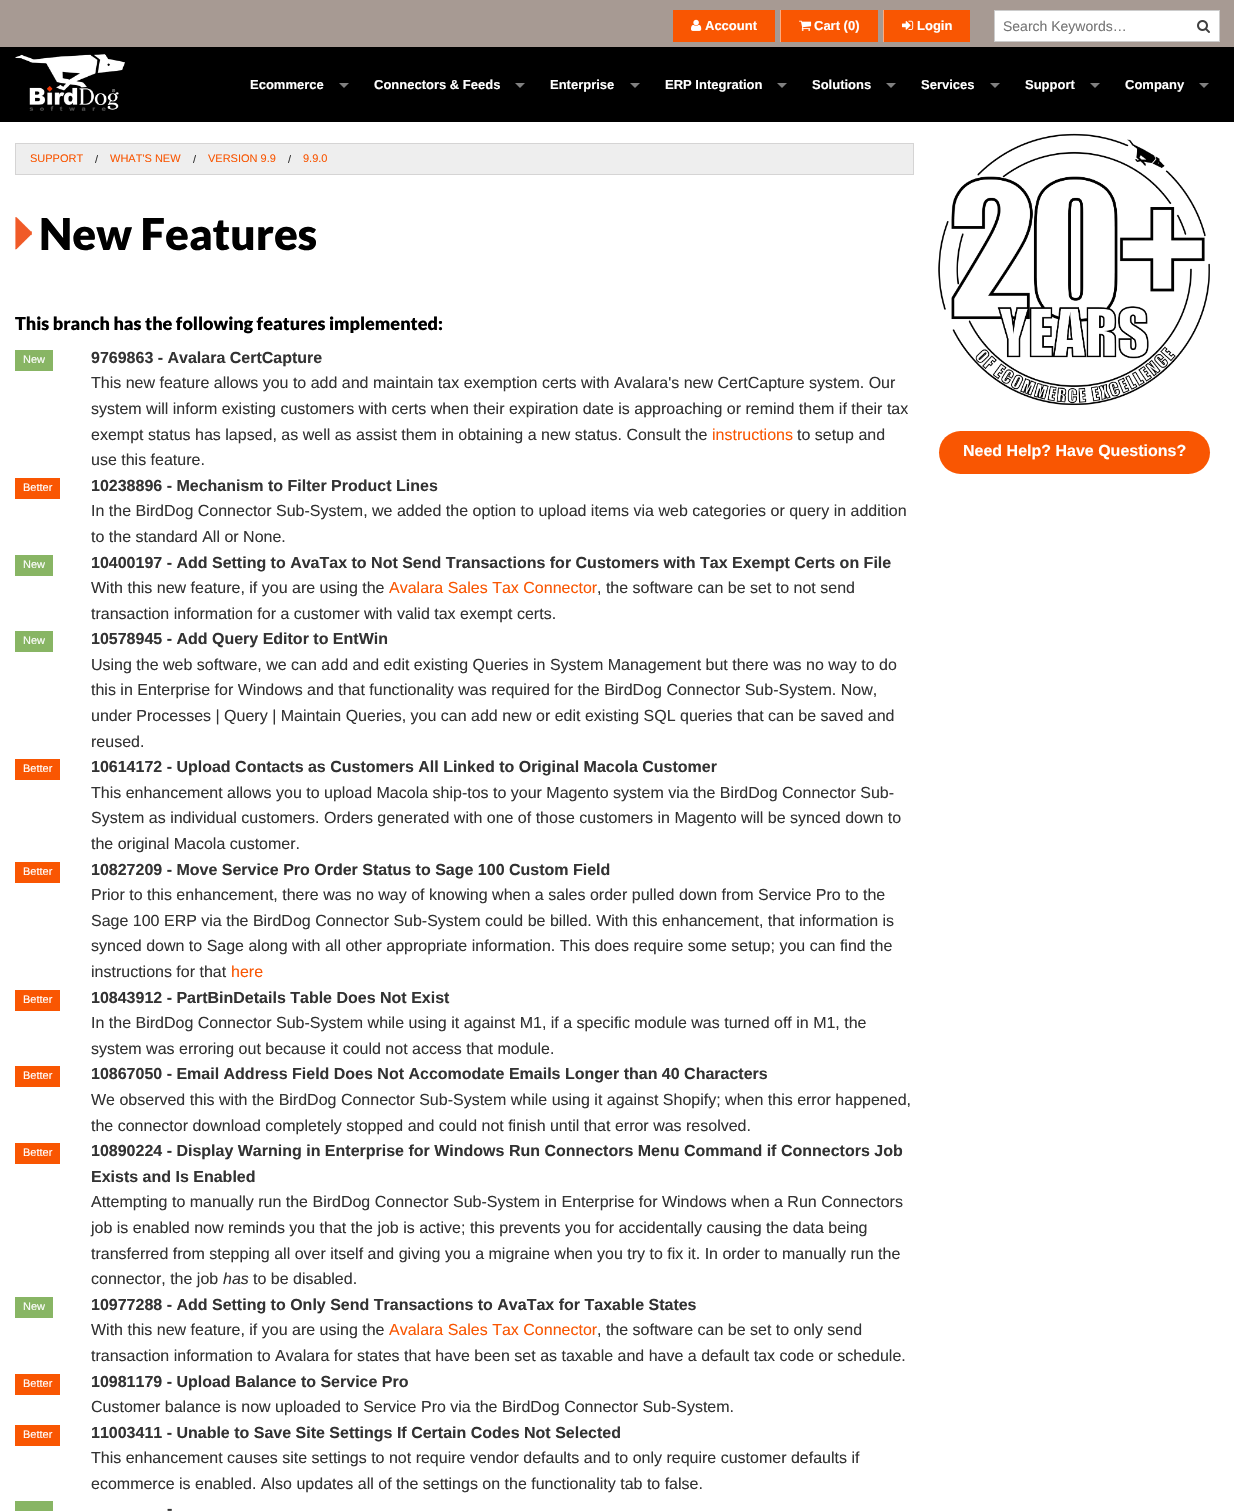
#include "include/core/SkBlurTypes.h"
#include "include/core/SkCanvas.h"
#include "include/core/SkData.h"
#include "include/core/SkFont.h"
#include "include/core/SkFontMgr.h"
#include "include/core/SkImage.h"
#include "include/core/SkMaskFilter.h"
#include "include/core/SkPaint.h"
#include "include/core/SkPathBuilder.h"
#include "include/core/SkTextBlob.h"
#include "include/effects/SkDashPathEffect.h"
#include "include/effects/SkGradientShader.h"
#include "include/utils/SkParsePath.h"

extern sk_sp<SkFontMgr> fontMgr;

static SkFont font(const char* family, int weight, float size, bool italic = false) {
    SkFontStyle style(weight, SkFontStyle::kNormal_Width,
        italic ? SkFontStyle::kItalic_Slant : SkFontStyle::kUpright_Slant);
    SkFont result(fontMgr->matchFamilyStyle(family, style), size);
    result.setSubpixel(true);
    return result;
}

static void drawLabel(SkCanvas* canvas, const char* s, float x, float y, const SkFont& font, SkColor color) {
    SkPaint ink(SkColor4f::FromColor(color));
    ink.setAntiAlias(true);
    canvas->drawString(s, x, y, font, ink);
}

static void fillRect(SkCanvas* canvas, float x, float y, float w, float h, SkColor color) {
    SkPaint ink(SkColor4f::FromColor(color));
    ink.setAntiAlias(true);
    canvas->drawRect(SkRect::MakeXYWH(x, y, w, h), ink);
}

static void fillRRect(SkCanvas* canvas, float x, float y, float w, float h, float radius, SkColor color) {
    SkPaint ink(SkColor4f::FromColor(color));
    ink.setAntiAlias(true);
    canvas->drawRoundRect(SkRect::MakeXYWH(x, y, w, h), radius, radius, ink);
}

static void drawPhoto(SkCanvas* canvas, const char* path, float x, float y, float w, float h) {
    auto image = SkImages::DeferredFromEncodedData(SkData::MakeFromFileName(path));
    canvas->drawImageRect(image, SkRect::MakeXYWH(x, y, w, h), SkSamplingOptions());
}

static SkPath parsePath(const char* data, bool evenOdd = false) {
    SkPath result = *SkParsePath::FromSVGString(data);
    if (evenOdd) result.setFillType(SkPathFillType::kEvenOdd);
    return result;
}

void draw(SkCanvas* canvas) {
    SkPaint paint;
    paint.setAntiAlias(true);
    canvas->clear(0xFF000000);
    fillRect(canvas, 0, 0, 1234, 47, 0xFFA79A93);
    fillRect(canvas, 673, 10, 102, 32, 0xFFF95602);
    drawPhoto(canvas, "assets/img1.png", 691, 19, 11, 12);
    SkFont font1 = font("Liberation Sans", 700, 13);
    drawLabel(canvas, "Account", 705, 30, font1, 0xFFFFFFFF);
    fillRect(canvas, 781, 10, 97, 32, 0xFFF95602);
    fillRect(canvas, 780, 10, 1, 32, 0xFFFCAB81);
    drawPhoto(canvas, "assets/img2.png", 799, 20, 13, 11);
    drawLabel(canvas, "Cart (0)", 814, 30, font1, 0xFFFFFFFF);
    fillRect(canvas, 884, 10, 86, 32, 0xFFF95602);
    fillRect(canvas, 883, 10, 1, 32, 0xFFFCAB81);
    drawPhoto(canvas, "assets/img3.png", 902, 20, 12, 10);
    drawLabel(canvas, "Login", 917, 30, font1, 0xFFFFFFFF);
    paint.setColor(0xFFFFFFFF);
    canvas->drawRect(SkRect::MakeXYWH(994.5f, 10.5f, 225, 31), paint);
    paint.setStroke(true);
    paint.setStrokeWidth(1);
    paint.setColor(0xFFCCCCCC);
    canvas->drawRect(SkRect::MakeXYWH(994.5f, 10.5f, 225, 31), paint);
    SkFont font2 = font("Liberation Sans", 400, 14);
    drawLabel(canvas, "Search Keywords…", 1003, 31, font2, 0xFF757575);
    drawPhoto(canvas, "assets/img4.png", 1197, 20, 13, 13);
    drawPhoto(canvas, "assets/img5.png", 15, 54, 110, 57);
    drawLabel(canvas, "Ecommerce", 250, 89, font1, 0xFFFFFFFF);
    paint.setStroke(false);
    paint.setColor(0xFF808080);
    canvas->drawPath(parsePath("M339 83H349L344 88Z"), paint);
    drawLabel(canvas, "Connectors & Feeds", 374, 89, font1, 0xFFFFFFFF);
    canvas->drawPath(parsePath("M515 83H525L520 88Z"), paint);
    drawLabel(canvas, "Enterprise", 550, 89, font1, 0xFFFFFFFF);
    canvas->drawPath(parsePath("M630 83H640L635 88Z"), paint);
    drawLabel(canvas, "ERP Integration", 665, 89, font1, 0xFFFFFFFF);
    canvas->drawPath(parsePath("M777 83H787L782 88Z"), paint);
    drawLabel(canvas, "Solutions", 812, 89, font1, 0xFFFFFFFF);
    canvas->drawPath(parsePath("M886 83H896L891 88Z"), paint);
    drawLabel(canvas, "Services", 921, 89, font1, 0xFFFFFFFF);
    canvas->drawPath(parsePath("M990 83H1000L995 88Z"), paint);
    drawLabel(canvas, "Support", 1025, 89, font1, 0xFFFFFFFF);
    canvas->drawPath(parsePath("M1090 83H1100L1095 88Z"), paint);
    drawLabel(canvas, "Company", 1125, 89, font1, 0xFFFFFFFF);
    canvas->drawPath(parsePath("M1199 83H1209L1204 88Z"), paint);
    fillRect(canvas, 0, 122, 1234, 1389, 0xFFFFFFFF);
    paint.setColor(0xFFEEEEEE);
    canvas->drawRect(SkRect::MakeXYWH(15.5f, 143.5f, 898, 31), paint);
    paint.setStroke(true);
    paint.setColor(0xFFD5D4D4);
    canvas->drawRect(SkRect::MakeXYWH(15.5f, 143.5f, 898, 31), paint);
    SkFont font3 = font("Liberation Sans", 400, 11);
    drawLabel(canvas, "SUPPORT", 30, 162, font3, 0xFFF95602);
    drawLabel(canvas, "/", 95, 163, font3, 0xFF333333);
    drawLabel(canvas, "WHAT'S NEW", 110, 162, font3, 0xFFF95602);
    drawLabel(canvas, "/", 193, 163, font3, 0xFF333333);
    drawLabel(canvas, "VERSION 9.9", 208, 162, font3, 0xFFF95602);
    drawLabel(canvas, "/", 288, 163, font3, 0xFF333333);
    drawLabel(canvas, "9.9.0", 303, 162, font3, 0xFFF95602);
    drawPhoto(canvas, "assets/img6.png", 15, 217, 17, 33);
    SkFont font4 = font("Lato", 900, 44);
    drawLabel(canvas, "New Features", 39, 250, font4, 0xFF000000);
    SkFont font5 = font("Lato", 900, 18);
    drawLabel(canvas, "This branch has the following features implemented:", 15, 330, font5, 0xFF000000);
    fillRect(canvas, 15, 350, 38, 21, 0xFF88B564);
    drawLabel(canvas, "New", 23, 363, font3, 0xFFFFFFFF);
    SkFont font6 = font("Liberation Sans", 700, 16);
    drawLabel(canvas, "9769863 - Avalara CertCapture", 91, 363, font6, 0xFF333333);
    SkFont font7 = font("Liberation Sans", 400, 16);
    drawLabel(canvas, "This new feature allows you to add and maintain tax exemption certs with Avalara's new CertCapture system. Our", 91, 388, font7, 0xFF333333);
    drawLabel(canvas, "system will inform existing customers with certs when their expiration date is approaching or remind them if their tax", 91, 414, font7, 0xFF333333);
    drawLabel(canvas, "exempt status has lapsed, as well as assist them in obtaining a new status. Consult the", 91, 440, font7, 0xFF333333);
    drawLabel(canvas, "instructions", 712, 440, font7, 0xFFF95602);
    drawLabel(canvas, "to setup and", 797, 440, font7, 0xFF333333);
    drawLabel(canvas, "use this feature.", 91, 465, font7, 0xFF333333);
    fillRect(canvas, 15, 478, 45, 21, 0xFFF95602);
    drawLabel(canvas, "Better", 23, 491, font3, 0xFFFFFFFF);
    drawLabel(canvas, "10238896 - Mechanism to Filter Product Lines", 91, 491, font6, 0xFF333333);
    drawLabel(canvas, "In the BirdDog Connector Sub-System, we added the option to upload items via web categories or query in addition", 91, 516, font7, 0xFF333333);
    drawLabel(canvas, "to the standard All or None.", 91, 542, font7, 0xFF333333);
    fillRect(canvas, 15, 555, 38, 21, 0xFF88B564);
    drawLabel(canvas, "New", 23, 568, font3, 0xFFFFFFFF);
    drawLabel(canvas, "10400197 - Add Setting to AvaTax to Not Send Transactions for Customers with Tax Exempt Certs on File", 91, 568, font6, 0xFF333333);
    drawLabel(canvas, "With this new feature, if you are using the", 91, 593, font7, 0xFF333333);
    drawLabel(canvas, "Avalara Sales Tax Connector", 389, 593, font7, 0xFFF95602);
    drawLabel(canvas, ", the software can be set to not send", 597, 593, font7, 0xFF333333);
    drawLabel(canvas, "transaction information for a customer with valid tax exempt certs.", 91, 619, font7, 0xFF333333);
    fillRect(canvas, 15, 631, 38, 21, 0xFF88B564);
    drawLabel(canvas, "New", 23, 644, font3, 0xFFFFFFFF);
    drawLabel(canvas, "10578945 - Add Query Editor to EntWin", 91, 644, font6, 0xFF333333);
    drawLabel(canvas, "Using the web software, we can add and edit existing Queries in System Management but there was no way to do", 91, 670, font7, 0xFF333333);
    drawLabel(canvas, "this in Enterprise for Windows and that functionality was required for the BirdDog Connector Sub-System. Now,", 91, 695, font7, 0xFF333333);
    drawLabel(canvas, "under Processes | Query | Maintain Queries, you can add new or edit existing SQL queries that can be saved and", 91, 721, font7, 0xFF333333);
    drawLabel(canvas, "reused.", 91, 747, font7, 0xFF333333);
    fillRect(canvas, 15, 759, 45, 21, 0xFFF95602);
    drawLabel(canvas, "Better", 23, 772, font3, 0xFFFFFFFF);
    drawLabel(canvas, "10614172 - Upload Contacts as Customers All Linked to Original Macola Customer", 91, 772, font6, 0xFF333333);
    drawLabel(canvas, "This enhancement allows you to upload Macola ship-tos to your Magento system via the BirdDog Connector Sub-", 91, 798, font7, 0xFF333333);
    drawLabel(canvas, "System as individual customers. Orders generated with one of those customers in Magento will be synced down to", 91, 823, font7, 0xFF333333);
    drawLabel(canvas, "the original Macola customer.", 91, 849, font7, 0xFF333333);
    fillRect(canvas, 15, 862, 45, 21, 0xFFF95602);
    drawLabel(canvas, "Better", 23, 875, font3, 0xFFFFFFFF);
    drawLabel(canvas, "10827209 - Move Service Pro Order Status to Sage 100 Custom Field", 91, 875, font6, 0xFF333333);
    drawLabel(canvas, "Prior to this enhancement, there was no way of knowing when a sales order pulled down from Service Pro to the", 91, 900, font7, 0xFF333333);
    drawLabel(canvas, "Sage 100 ERP via the BirdDog Connector Sub-System could be billed. With this enhancement, that information is", 91, 926, font7, 0xFF333333);
    drawLabel(canvas, "synced down to Sage along with all other appropriate information. This does require some setup; you can find the", 91, 951, font7, 0xFF333333);
    drawLabel(canvas, "instructions for that", 91, 977, font7, 0xFF333333);
    drawLabel(canvas, "here", 231, 977, font7, 0xFFF95602);
    fillRect(canvas, 15, 990, 45, 21, 0xFFF95602);
    drawLabel(canvas, "Better", 23, 1003, font3, 0xFFFFFFFF);
    drawLabel(canvas, "10843912 - PartBinDetails Table Does Not Exist", 91, 1003, font6, 0xFF333333);
    drawLabel(canvas, "In the BirdDog Connector Sub-System while using it against M1, if a specific module was turned off in M1, the", 91, 1028, font7, 0xFF333333);
    drawLabel(canvas, "system was erroring out because it could not access that module.", 91, 1054, font7, 0xFF333333);
    fillRect(canvas, 15, 1066, 45, 21, 0xFFF95602);
    drawLabel(canvas, "Better", 23, 1079, font3, 0xFFFFFFFF);
    drawLabel(canvas, "10867050 - Email Address Field Does Not Accomodate Emails Longer than 40 Characters", 91, 1079, font6, 0xFF333333);
    drawLabel(canvas, "We observed this with the BirdDog Connector Sub-System while using it against Shopify; when this error happened,", 91, 1105, font7, 0xFF333333);
    drawLabel(canvas, "the connector download completely stopped and could not finish until that error was resolved.", 91, 1131, font7, 0xFF333333);
    fillRect(canvas, 15, 1143, 45, 21, 0xFFF95602);
    drawLabel(canvas, "Better", 23, 1156, font3, 0xFFFFFFFF);
    drawLabel(canvas, "10890224 - Display Warning in Enterprise for Windows Run Connectors Menu Command if Connectors Job", 91, 1156, font6, 0xFF333333);
    drawLabel(canvas, "Exists and Is Enabled", 91, 1182, font6, 0xFF333333);
    drawLabel(canvas, "Attempting to manually run the BirdDog Connector Sub-System in Enterprise for Windows when a Run Connectors", 91, 1207, font7, 0xFF333333);
    drawLabel(canvas, "job is enabled now reminds you that the job is active; this prevents you for accidentally causing the data being", 91, 1233, font7, 0xFF333333);
    drawLabel(canvas, "transferred from stepping all over itself and giving you a migraine when you try to fix it. In order to manually run the", 91, 1259, font7, 0xFF333333);
    drawLabel(canvas, "connector, the job", 91, 1284, font7, 0xFF333333);
    SkFont font8 = font("Liberation Sans", 400, 16, true);
    drawLabel(canvas, "has", 223, 1284, font8, 0xFF333333);
    drawLabel(canvas, "to be disabled.", 253, 1284, font7, 0xFF333333);
    fillRect(canvas, 15, 1297, 38, 21, 0xFF88B564);
    drawLabel(canvas, "New", 23, 1310, font3, 0xFFFFFFFF);
    drawLabel(canvas, "10977288 - Add Setting to Only Send Transactions to AvaTax for Taxable States", 91, 1310, font6, 0xFF333333);
    drawLabel(canvas, "With this new feature, if you are using the", 91, 1335, font7, 0xFF333333);
    drawLabel(canvas, "Avalara Sales Tax Connector", 389, 1335, font7, 0xFFF95602);
    drawLabel(canvas, ", the software can be set to only send", 597, 1335, font7, 0xFF333333);
    drawLabel(canvas, "transaction information to Avalara for states that have been set as taxable and have a default tax code or schedule.", 91, 1361, font7, 0xFF333333);
    fillRect(canvas, 15, 1374, 45, 21, 0xFFF95602);
    drawLabel(canvas, "Better", 23, 1387, font3, 0xFFFFFFFF);
    drawLabel(canvas, "10981179 - Upload Balance to Service Pro", 91, 1387, font6, 0xFF333333);
    drawLabel(canvas, "Customer balance is now uploaded to Service Pro via the BirdDog Connector Sub-System.", 91, 1412, font7, 0xFF333333);
    fillRect(canvas, 15, 1425, 45, 21, 0xFFF95602);
    drawLabel(canvas, "Better", 23, 1438, font3, 0xFFFFFFFF);
    drawLabel(canvas, "11003411 - Unable to Save Site Settings If Certain Codes Not Selected", 91, 1438, font6, 0xFF333333);
    drawLabel(canvas, "This enhancement causes site settings to not require vendor defaults and to only require customer defaults if", 91, 1463, font7, 0xFF333333);
    drawLabel(canvas, "ecommerce is enabled. Also updates all of the settings on the functionality tab to false.", 91, 1489, font7, 0xFF333333);
    fillRect(canvas, 15, 1501, 38, 10, 0xFF88B564);
    drawLabel(canvas, "-", 167, 1514, font6, 0xFF333333);
    drawPhoto(canvas, "assets/img7.png", 938, 133, 272, 273);
    fillRRect(canvas, 939, 431, 271, 43, 21.5f, 0xFFF95602);
    drawLabel(canvas, "Need Help? Have Questions?", 963, 456, font6, 0xFFFFFFFF);
}
